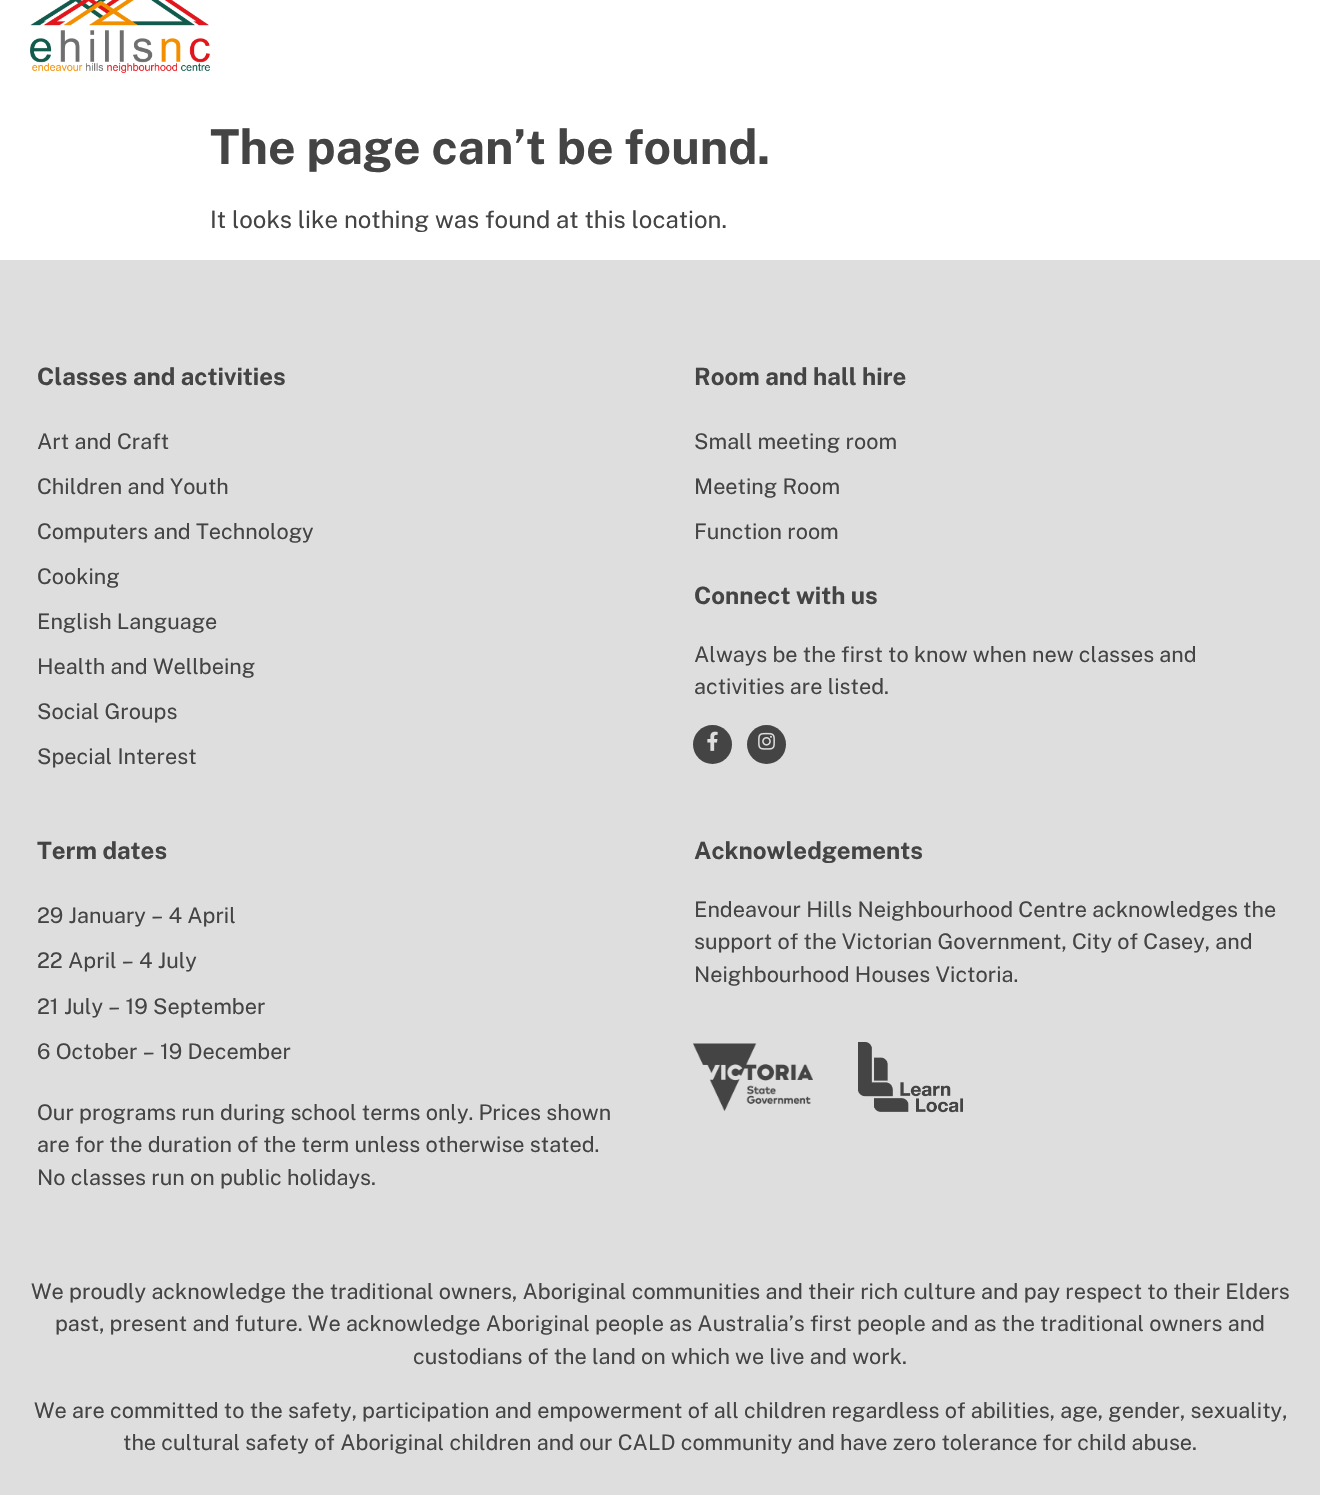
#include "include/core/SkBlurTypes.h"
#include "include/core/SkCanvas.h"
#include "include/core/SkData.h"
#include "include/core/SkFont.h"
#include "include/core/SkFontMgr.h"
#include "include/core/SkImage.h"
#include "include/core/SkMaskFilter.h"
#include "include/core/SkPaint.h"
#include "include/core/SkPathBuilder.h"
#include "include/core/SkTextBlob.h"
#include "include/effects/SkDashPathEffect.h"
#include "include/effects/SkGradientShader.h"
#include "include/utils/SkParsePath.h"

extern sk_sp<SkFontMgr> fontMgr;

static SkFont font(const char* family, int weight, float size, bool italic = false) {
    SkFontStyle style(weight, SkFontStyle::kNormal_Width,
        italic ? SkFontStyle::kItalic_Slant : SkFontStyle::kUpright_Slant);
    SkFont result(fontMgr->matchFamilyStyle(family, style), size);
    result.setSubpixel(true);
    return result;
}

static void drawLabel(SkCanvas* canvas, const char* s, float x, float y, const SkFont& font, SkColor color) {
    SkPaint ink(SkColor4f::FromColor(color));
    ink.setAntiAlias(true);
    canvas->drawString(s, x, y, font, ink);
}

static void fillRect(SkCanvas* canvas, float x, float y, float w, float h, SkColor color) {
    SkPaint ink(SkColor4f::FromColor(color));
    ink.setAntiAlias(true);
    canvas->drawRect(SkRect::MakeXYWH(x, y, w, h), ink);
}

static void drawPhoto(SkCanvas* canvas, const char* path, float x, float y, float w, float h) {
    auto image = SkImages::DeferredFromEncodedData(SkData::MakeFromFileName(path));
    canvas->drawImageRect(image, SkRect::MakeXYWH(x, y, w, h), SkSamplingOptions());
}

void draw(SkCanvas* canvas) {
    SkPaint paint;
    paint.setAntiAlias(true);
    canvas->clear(0xFFFFFFFF);
    drawPhoto(canvas, "assets/img1.png", 30, 0, 180, 73);
    SkFont font1 = font("Public Sans", 700, 48);
    drawLabel(canvas, "The page can’t be found.", 210, 164, font1, 0xFF444444);
    SkFont font2 = font("Public Sans", 400, 24);
    drawLabel(canvas, "It looks like nothing was found at this location.", 210, 228, font2, 0xFF444444);
    fillRect(canvas, 0, 260, 1320, 1235, 0xFFDEDEDE);
    SkFont font3 = font("Public Sans", 700, 24);
    drawLabel(canvas, "Classes and activities", 37, 385, font3, 0xFF444444);
    SkFont font4 = font("Public Sans", 400, 21.6f);
    drawLabel(canvas, "Art and Craft", 37, 449, font4, 0xFF444444);
    drawLabel(canvas, "Children and Youth", 37, 494, font4, 0xFF444444);
    drawLabel(canvas, "Computers and Technology", 37, 539, font4, 0xFF444444);
    drawLabel(canvas, "Cooking", 37, 584, font4, 0xFF444444);
    drawLabel(canvas, "English Language", 37, 629, font4, 0xFF444444);
    drawLabel(canvas, "Health and Wellbeing", 37, 674, font4, 0xFF444444);
    drawLabel(canvas, "Social Groups", 37, 719, font4, 0xFF444444);
    drawLabel(canvas, "Special Interest", 37, 764, font4, 0xFF444444);
    drawLabel(canvas, "Room and hall hire", 694, 385, font3, 0xFF444444);
    drawLabel(canvas, "Small meeting room", 694, 449, font4, 0xFF444444);
    drawLabel(canvas, "Meeting Room", 694, 494, font4, 0xFF444444);
    drawLabel(canvas, "Function room", 694, 539, font4, 0xFF444444);
    drawLabel(canvas, "Connect with us", 694, 604, font3, 0xFF444444);
    drawLabel(canvas, "Always be the first to know when new classes and", 694, 662, font4, 0xFF444444);
    drawLabel(canvas, "activities are listed.", 694, 694, font4, 0xFF444444);
    paint.setColor(0xFF444444);
    canvas->drawCircle(712.5f, 744.5f, 19.5f, paint);
    drawPhoto(canvas, "assets/img2.png", 707, 731, 11, 20);
    canvas->drawCircle(766.5f, 744.5f, 19.5f, paint);
    drawPhoto(canvas, "assets/img3.png", 758, 732, 17, 18);
    drawLabel(canvas, "Term dates", 37, 859, font3, 0xFF444444);
    drawLabel(canvas, "29 January – 4 April", 37, 923, font4, 0xFF444444);
    drawLabel(canvas, "22 April – 4 July", 37, 968, font4, 0xFF444444);
    drawLabel(canvas, "21 July – 19 September", 37, 1014, font4, 0xFF444444);
    drawLabel(canvas, "6 October – 19 December", 37, 1059, font4, 0xFF444444);
    drawLabel(canvas, "Our programs run during school terms only. Prices shown", 37, 1120, font4, 0xFF444444);
    drawLabel(canvas, "are for the duration of the term unless otherwise stated.", 37, 1152, font4, 0xFF444444);
    drawLabel(canvas, "No classes run on public holidays.", 37, 1185, font4, 0xFF444444);
    drawLabel(canvas, "Acknowledgements", 694, 859, font3, 0xFF444444);
    drawLabel(canvas, "Endeavour Hills Neighbourhood Centre acknowledges the", 694, 917, font4, 0xFF444444);
    drawLabel(canvas, "support of the Victorian Government, City of Casey, and", 694, 949, font4, 0xFF444444);
    drawLabel(canvas, "Neighbourhood Houses Victoria.", 694, 982, font4, 0xFF444444);
    drawPhoto(canvas, "assets/img4.png", 693, 1043, 120, 68);
    drawPhoto(canvas, "assets/img5.png", 858, 1042, 105, 71);
    drawLabel(canvas, "We proudly acknowledge the traditional owners, Aboriginal communities and their rich culture and pay respect to their Elders", 31, 1299, font4, 0xFF444444);
    drawLabel(canvas, "past, present and future. We acknowledge Aboriginal people as Australia’s first people and as the traditional owners and", 55, 1331, font4, 0xFF444444);
    drawLabel(canvas, "custodians of the land on which we live and work.", 413, 1364, font4, 0xFF444444);
    drawLabel(canvas, "We are committed to the safety, participation and empowerment of all children regardless of abilities, age, gender, sexuality,", 34, 1418, font4, 0xFF444444);
    drawLabel(canvas, "the cultural safety of Aboriginal children and our CALD community and have zero tolerance for child abuse.", 123, 1450, font4, 0xFF444444);
}
